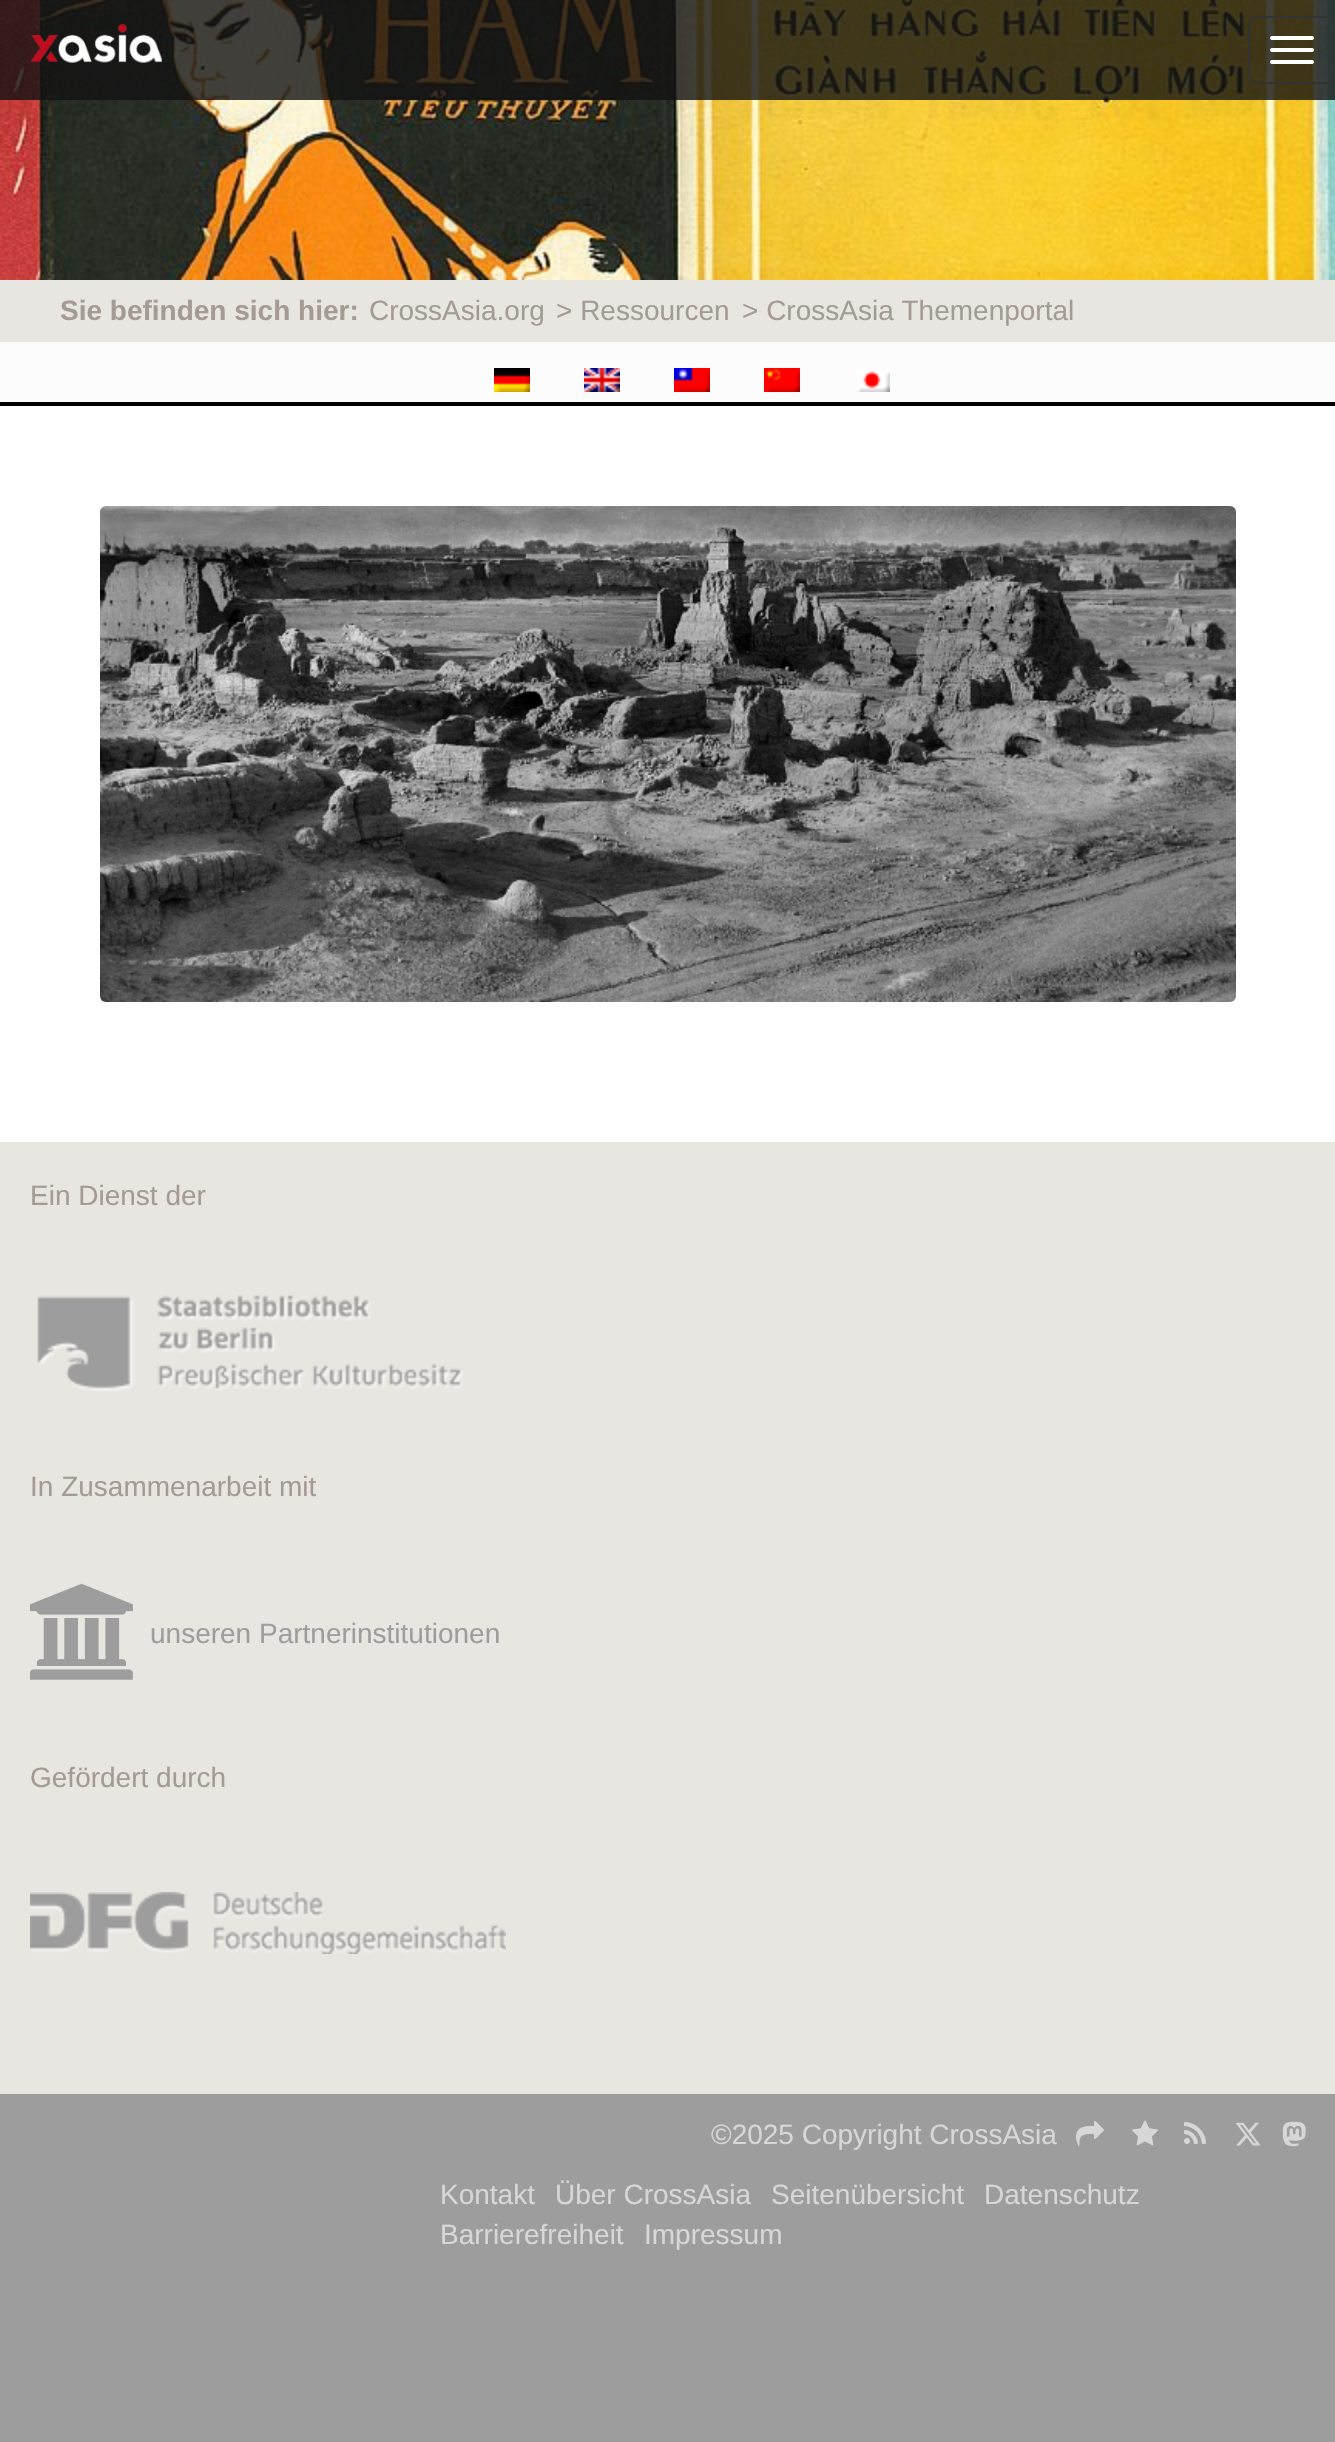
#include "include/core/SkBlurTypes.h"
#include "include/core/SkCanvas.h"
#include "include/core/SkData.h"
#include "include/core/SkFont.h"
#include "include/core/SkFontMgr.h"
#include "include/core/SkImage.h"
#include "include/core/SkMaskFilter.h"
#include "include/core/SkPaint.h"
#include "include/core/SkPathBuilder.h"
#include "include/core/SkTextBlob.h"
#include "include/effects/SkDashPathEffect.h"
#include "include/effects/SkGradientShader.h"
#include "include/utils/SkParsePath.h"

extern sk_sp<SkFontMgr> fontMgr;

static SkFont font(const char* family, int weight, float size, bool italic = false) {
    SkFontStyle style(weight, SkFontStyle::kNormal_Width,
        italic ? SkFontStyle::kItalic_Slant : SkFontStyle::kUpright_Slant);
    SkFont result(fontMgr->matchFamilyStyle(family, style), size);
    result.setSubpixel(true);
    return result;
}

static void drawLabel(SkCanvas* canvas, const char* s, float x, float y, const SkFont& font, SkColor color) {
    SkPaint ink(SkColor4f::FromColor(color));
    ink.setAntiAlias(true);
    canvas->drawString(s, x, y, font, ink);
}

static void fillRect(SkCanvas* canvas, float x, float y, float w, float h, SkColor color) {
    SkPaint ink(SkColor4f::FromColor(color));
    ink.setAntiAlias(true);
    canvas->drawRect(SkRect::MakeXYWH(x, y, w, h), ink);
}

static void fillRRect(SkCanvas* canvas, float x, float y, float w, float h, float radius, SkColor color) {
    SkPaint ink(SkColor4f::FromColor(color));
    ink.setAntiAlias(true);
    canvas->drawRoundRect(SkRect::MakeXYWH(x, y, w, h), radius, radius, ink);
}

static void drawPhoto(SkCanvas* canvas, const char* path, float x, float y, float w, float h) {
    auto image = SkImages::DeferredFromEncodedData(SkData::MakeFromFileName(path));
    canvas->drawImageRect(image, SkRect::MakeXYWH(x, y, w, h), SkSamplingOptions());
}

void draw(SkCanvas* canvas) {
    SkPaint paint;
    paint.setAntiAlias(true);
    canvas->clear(0xFF9D9D9D);
    fillRect(canvas, 0, 406, 1335, 736, 0xFFFFFFFF);
    drawPhoto(canvas, "assets/img1.png", 0, 0, 1335, 280);
    fillRect(canvas, 0, 0, 1335, 100, 0xCC111111);
    drawPhoto(canvas, "assets/img2.png", 30, 23, 132, 40);
    paint.setStroke(true);
    paint.setStrokeWidth(2);
    paint.setColor(0xFF333333);
    canvas->drawRoundRect(SkRect::MakeXYWH(1249, 17, 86, 66), 7, 7, paint);
    fillRRect(canvas, 1270, 36, 44, 4, 2, 0xFFFFFFFF);
    fillRRect(canvas, 1270, 48, 44, 4, 2, 0xFFFFFFFF);
    fillRRect(canvas, 1270, 60, 44, 4, 2, 0xFFFFFFFF);
    fillRect(canvas, 0, 280, 1335, 62, 0xFFE8E6E1);
    SkFont font1 = font("Liberation Sans", 700, 28);
    drawLabel(canvas, "Sie befinden sich hier:", 60, 320, font1, 0xFFA39B94);
    SkFont font2 = font("Liberation Sans", 400, 28);
    drawLabel(canvas, "CrossAsia.org", 369, 320, font2, 0xFFA39B94);
    drawLabel(canvas, "> Ressourcen", 556, 320, font2, 0xFFA39B94);
    drawLabel(canvas, "> CrossAsia Themenportal", 742, 320, font2, 0xFFA39B94);
    fillRect(canvas, 0, 342, 1335, 60, 0xFFFCFCFC);
    drawPhoto(canvas, "assets/img3.png", 494, 368, 36, 24);
    drawPhoto(canvas, "assets/img4.png", 584, 368, 36, 24);
    drawPhoto(canvas, "assets/img5.png", 674, 368, 36, 24);
    drawPhoto(canvas, "assets/img6.png", 764, 368, 36, 24);
    drawPhoto(canvas, "assets/img7.png", 858, 371, 32, 21);
    fillRect(canvas, 0, 402, 1335, 4, 0xFF000000);
    drawPhoto(canvas, "assets/img8.png", 100, 506, 1136, 496);
    fillRect(canvas, 0, 1142, 1335, 952, 0xFFE8E6E1);
    drawLabel(canvas, "Ein Dienst der", 30, 1205, font2, 0xFFA39B94);
    drawPhoto(canvas, "assets/img9.png", 37, 1295, 426, 97);
    drawLabel(canvas, "In Zusammenarbeit mit", 30, 1496, font2, 0xFFA39B94);
    drawPhoto(canvas, "assets/img10.png", 30, 1583, 103, 97);
    drawLabel(canvas, "unseren Partnerinstitutionen", 150, 1643, font2, 0xFF9D9D9D);
    drawLabel(canvas, "Gefördert durch", 30, 1787, font2, 0xFFA39B94);
    drawPhoto(canvas, "assets/img11.png", 30, 1892, 476, 62);
    drawLabel(canvas, "©2025 Copyright CrossAsia", 711, 2144, font2, 0xFFD7D7D7);
    drawPhoto(canvas, "assets/img12.png", 1076, 2121, 28, 25);
    drawPhoto(canvas, "assets/img13.png", 1132, 2120, 26, 26);
    drawPhoto(canvas, "assets/img14.png", 1184, 2122, 22, 22);
    drawPhoto(canvas, "assets/img15.png", 1235, 2122, 26, 24);
    drawPhoto(canvas, "assets/img16.png", 1282, 2121, 24, 26);
    drawLabel(canvas, "Kontakt", 440, 2204, font2, 0xFFD7D7D7);
    drawLabel(canvas, "Über CrossAsia", 555, 2204, font2, 0xFFD7D7D7);
    drawLabel(canvas, "Seitenübersicht", 771, 2204, font2, 0xFFD7D7D7);
    drawLabel(canvas, "Datenschutz", 984, 2204, font2, 0xFFD7D7D7);
    drawLabel(canvas, "Barrierefreiheit", 440, 2244, font2, 0xFFD7D7D7);
    drawLabel(canvas, "Impressum", 644, 2244, font2, 0xFFD7D7D7);
}
